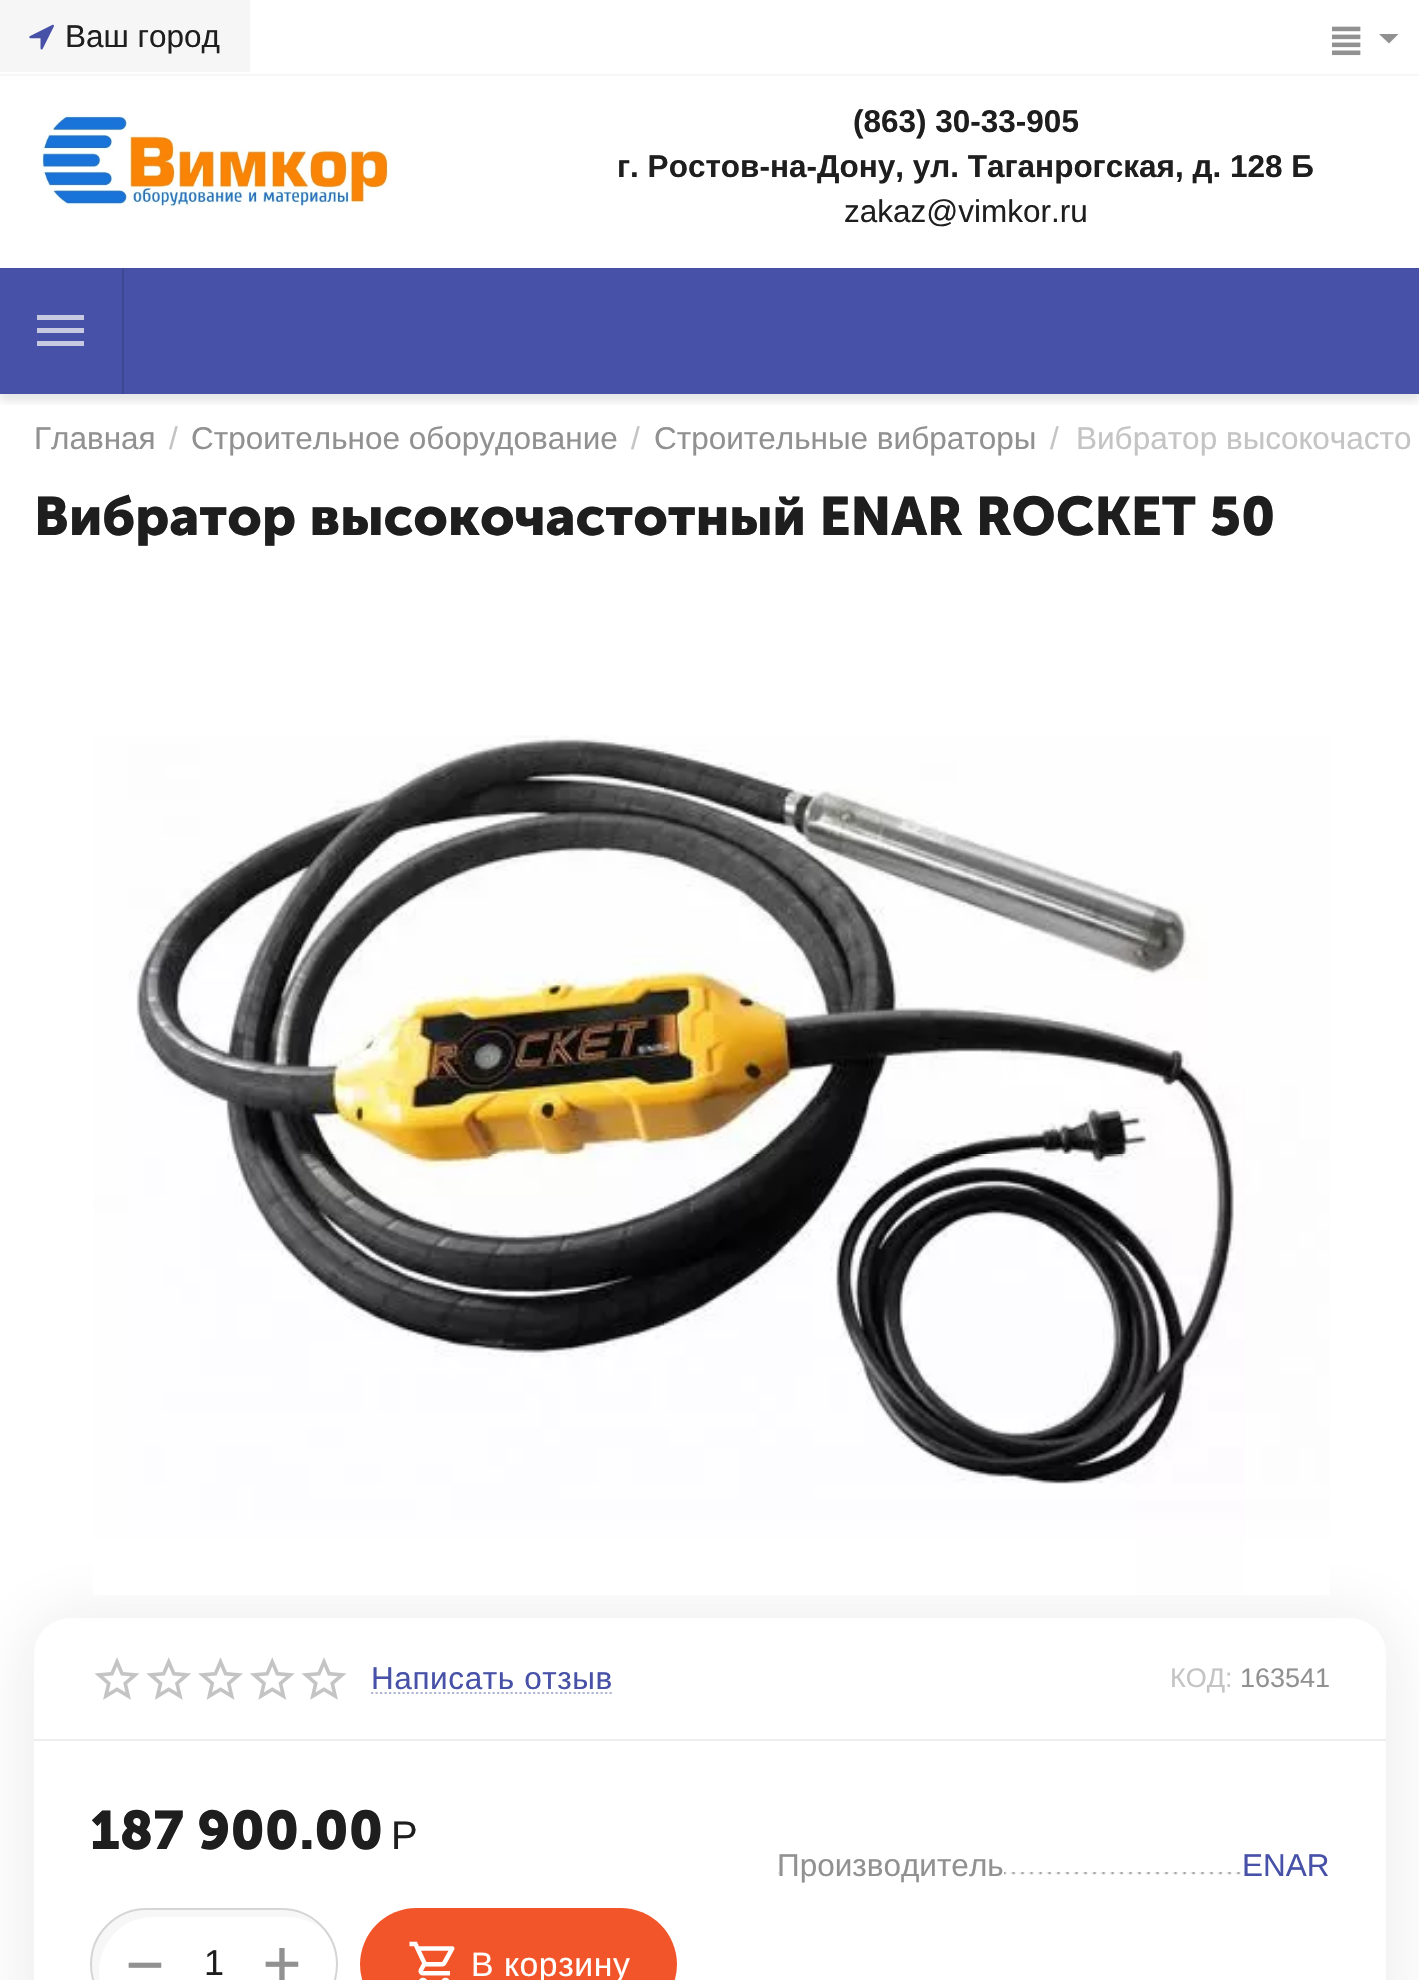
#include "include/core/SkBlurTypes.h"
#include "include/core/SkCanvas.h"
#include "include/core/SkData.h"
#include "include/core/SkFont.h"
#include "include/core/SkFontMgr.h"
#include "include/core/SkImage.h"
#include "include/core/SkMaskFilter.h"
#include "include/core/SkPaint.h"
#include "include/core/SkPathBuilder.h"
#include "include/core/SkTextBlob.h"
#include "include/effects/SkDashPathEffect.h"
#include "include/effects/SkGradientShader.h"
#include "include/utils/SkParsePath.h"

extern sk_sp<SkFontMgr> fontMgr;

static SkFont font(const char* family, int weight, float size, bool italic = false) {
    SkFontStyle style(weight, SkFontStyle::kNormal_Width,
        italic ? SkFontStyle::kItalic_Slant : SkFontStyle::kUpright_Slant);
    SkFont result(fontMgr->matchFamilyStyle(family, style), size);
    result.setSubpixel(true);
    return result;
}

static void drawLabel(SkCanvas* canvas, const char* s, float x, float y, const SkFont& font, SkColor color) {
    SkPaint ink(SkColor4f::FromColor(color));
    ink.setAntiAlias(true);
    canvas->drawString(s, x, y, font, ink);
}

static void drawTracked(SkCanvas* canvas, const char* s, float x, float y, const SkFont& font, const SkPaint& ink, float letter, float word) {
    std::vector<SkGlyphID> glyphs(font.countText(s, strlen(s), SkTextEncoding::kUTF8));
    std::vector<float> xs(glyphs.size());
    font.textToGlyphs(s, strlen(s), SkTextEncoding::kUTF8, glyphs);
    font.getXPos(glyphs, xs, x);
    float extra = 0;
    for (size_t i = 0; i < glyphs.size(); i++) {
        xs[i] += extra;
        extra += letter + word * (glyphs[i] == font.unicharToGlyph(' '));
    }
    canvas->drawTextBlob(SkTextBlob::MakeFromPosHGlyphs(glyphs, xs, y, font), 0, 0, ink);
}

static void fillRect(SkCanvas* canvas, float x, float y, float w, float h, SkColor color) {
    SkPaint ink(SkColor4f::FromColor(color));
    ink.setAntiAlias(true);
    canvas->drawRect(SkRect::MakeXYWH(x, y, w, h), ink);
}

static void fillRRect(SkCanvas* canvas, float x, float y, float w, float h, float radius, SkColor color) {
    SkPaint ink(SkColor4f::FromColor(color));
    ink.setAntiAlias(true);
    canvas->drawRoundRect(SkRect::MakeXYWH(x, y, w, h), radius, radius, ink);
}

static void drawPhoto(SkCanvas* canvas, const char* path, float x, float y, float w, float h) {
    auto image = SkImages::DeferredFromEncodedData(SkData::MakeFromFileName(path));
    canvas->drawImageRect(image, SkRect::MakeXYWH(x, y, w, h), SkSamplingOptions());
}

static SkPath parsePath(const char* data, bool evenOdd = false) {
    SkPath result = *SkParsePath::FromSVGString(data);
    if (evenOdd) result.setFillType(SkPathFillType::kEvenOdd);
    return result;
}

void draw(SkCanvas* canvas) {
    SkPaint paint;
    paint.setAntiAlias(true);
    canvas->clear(0xFFFFFFFF);
    canvas->save();
    canvas->clipRect(SkRect::MakeXYWH(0, 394, 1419, 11));
    paint.setColor(0x1A000000);
    paint.setMaskFilter(SkMaskFilter::MakeBlur(kNormal_SkBlurStyle, 4.5f));
    canvas->drawRect(SkRect::MakeXYWH(0, 83, 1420, 318), paint);
    paint.setMaskFilter(nullptr);
    canvas->restore();
    fillRect(canvas, 0, 74, 1419, 2, 0xFFF6F6F6);
    fillRect(canvas, 0, 0, 250, 72, 0xFFF6F6F6);
    drawPhoto(canvas, "assets/img1.png", 29, 24, 25, 26);
    SkFont font1 = font("Liberation Sans", 400, 31.5f);
    drawLabel(canvas, "Ваш город", 65, 47, font1, 0xFF1E1E1E);
    drawPhoto(canvas, "assets/img2.png", 1332, 26, 29, 30);
    paint.setColor(0xFF919191);
    canvas->drawPath(parsePath("M1389 43.5L1379 34H1398.5Z"), paint);
    drawPhoto(canvas, "assets/img3.png", 42, 115, 347, 92);
    SkFont font2 = font("Liberation Sans", 700, 31.5f);
    drawLabel(canvas, "(863) 30-33-905", 853, 132, font2, 0xFF1E1E1E);
    drawLabel(canvas, "г. Ростов-на-Дону, ул. Таганрогская, д. 128 Б", 617, 177, font2, 0xFF1E1E1E);
    drawLabel(canvas, "zakaz@vimkor.ru", 844, 222, font1, 0xFF1E1E1E);
    fillRect(canvas, 0, 268, 1419, 126, 0xFF4651A7);
    fillRect(canvas, 122, 268, 2, 126, 0xFF3E4895);
    paint.setColor(0xFFC6C9E0);
    canvas->drawPath(parsePath("M37 346H84V341H37ZM37 333H84V328H37ZM37 315V320H84V315Z"), paint);
    drawLabel(canvas, "Главная", 34, 449, font1, 0xFF919191);
    drawLabel(canvas, "/", 169, 449, font1, 0xFFC4C4C4);
    drawLabel(canvas, "Строительное оборудование", 191, 449, font1, 0xFF919191);
    drawLabel(canvas, "/", 631, 449, font1, 0xFFC4C4C4);
    drawLabel(canvas, "Строительные вибраторы", 654, 449, font1, 0xFF919191);
    drawLabel(canvas, "/", 1050, 449, font1, 0xFFC4C4C4);
    drawLabel(canvas, "Вибратор высокочасто", 1076, 449, font1, 0xFFC4C4C4);
    SkFont font3 = font("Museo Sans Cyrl", 700, 54);
    drawLabel(canvas, "Вибратор высокочастотный ENAR ROCKET 50", 34, 535, font3, 0xFF1E1E1E);
    paint.setColor(0x1A1E1E1E);
    paint.setMaskFilter(SkMaskFilter::MakeBlur(kNormal_SkBlurStyle, 36));
    canvas->drawRoundRect(SkRect::MakeXYWH(34, 1622, 1352, 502), 36, 36, paint);
    paint.setMaskFilter(nullptr);
    drawPhoto(canvas, "assets/img4.png", 93, 735, 1237, 860);
    fillRRect(canvas, 34, 1618, 1352, 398, 36, 0xFFFFFFFF);
    fillRect(canvas, 34, 1739, 1352, 2, 0xFFEEEEEE);
    drawPhoto(canvas, "assets/img5.png", 94, 1657, 253, 43);
    paint.setColor(0xFF4651A7);
    drawTracked(canvas, "Написать отзыв", 371, 1689, font1, paint, 0.6f, 0);
    paint.setStroke(true);
    paint.setStrokeWidth(2.2f);
    paint.setColor(0xFFB0B5D6);
    paint.setPathEffect(SkDashPathEffect::Make({{2.25f, 2.25f}}, 0));
    canvas->drawPath(parsePath("M371 1693H613.5"), paint);
    paint.setPathEffect(nullptr);
    SkFont font4 = font("Liberation Sans", 400, 27);
    drawLabel(canvas, "КОД:", 1170, 1687, font4, 0xFFC4C4C4);
    drawLabel(canvas, "163541", 1240, 1687, font4, 0xFF919191);
    drawLabel(canvas, "187 900.00", 90, 1849, font3, 0xFF1E1E1E);
    SkFont font5 = font("Liberation Sans", 400, 40);
    drawLabel(canvas, "Р", 391, 1849, font5, 0xFF1E1E1E);
    paint.setStroke(false);
    paint.setColor(0xFFF7F7F7);
    canvas->drawPath(parsePath("M153 1917H288C301 1917 313 1922 322 1929C312 1917 298 1910 281 1910H146C116 1910 92 1934 92 1964C92 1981 99 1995 111 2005C83 1971 107 1917 153 1917Z"), paint);
    paint.setStroke(true);
    paint.setStrokeWidth(2);
    paint.setColor(0xFFD5D5D5);
    canvas->drawRoundRect(SkRect::MakeXYWH(91, 1909, 246, 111), 55.5f, 55.5f, paint);
    SkFont font6 = font("DejaVu Sans Mono", 400, 63);
    drawLabel(canvas, "−", 126, 1985, font6, 0xFF919191);
    SkFont font7 = font("Liberation Sans", 400, 36);
    drawLabel(canvas, "1", 204, 1975, font7, 0xFF1E1E1E);
    drawLabel(canvas, "+", 263, 1984, font6, 0xFF919191);
    fillRRect(canvas, 360, 1908, 317, 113, 56.5f, 0xFFF25529);
    drawPhoto(canvas, "assets/img6.png", 409, 1941, 46, 39);
    SkFont font8 = font("Liberation Sans", 400, 33.75f);
    paint.setStroke(false);
    paint.setColor(0xFFFFFFFF);
    drawTracked(canvas, "В корзину", 471, 1976, font8, paint, 0.6f, 0);
    drawPhoto(canvas, "assets/img7.png", 778, 1872, 464, 3);
    fillRect(canvas, 779, 1872, 225, 3, 0xFFFFFFFF);
    drawLabel(canvas, "Производитель", 777, 1876, font1, 0xFF919191);
    drawLabel(canvas, "ENAR", 1242, 1876, font1, 0xFF4651A7);
}
